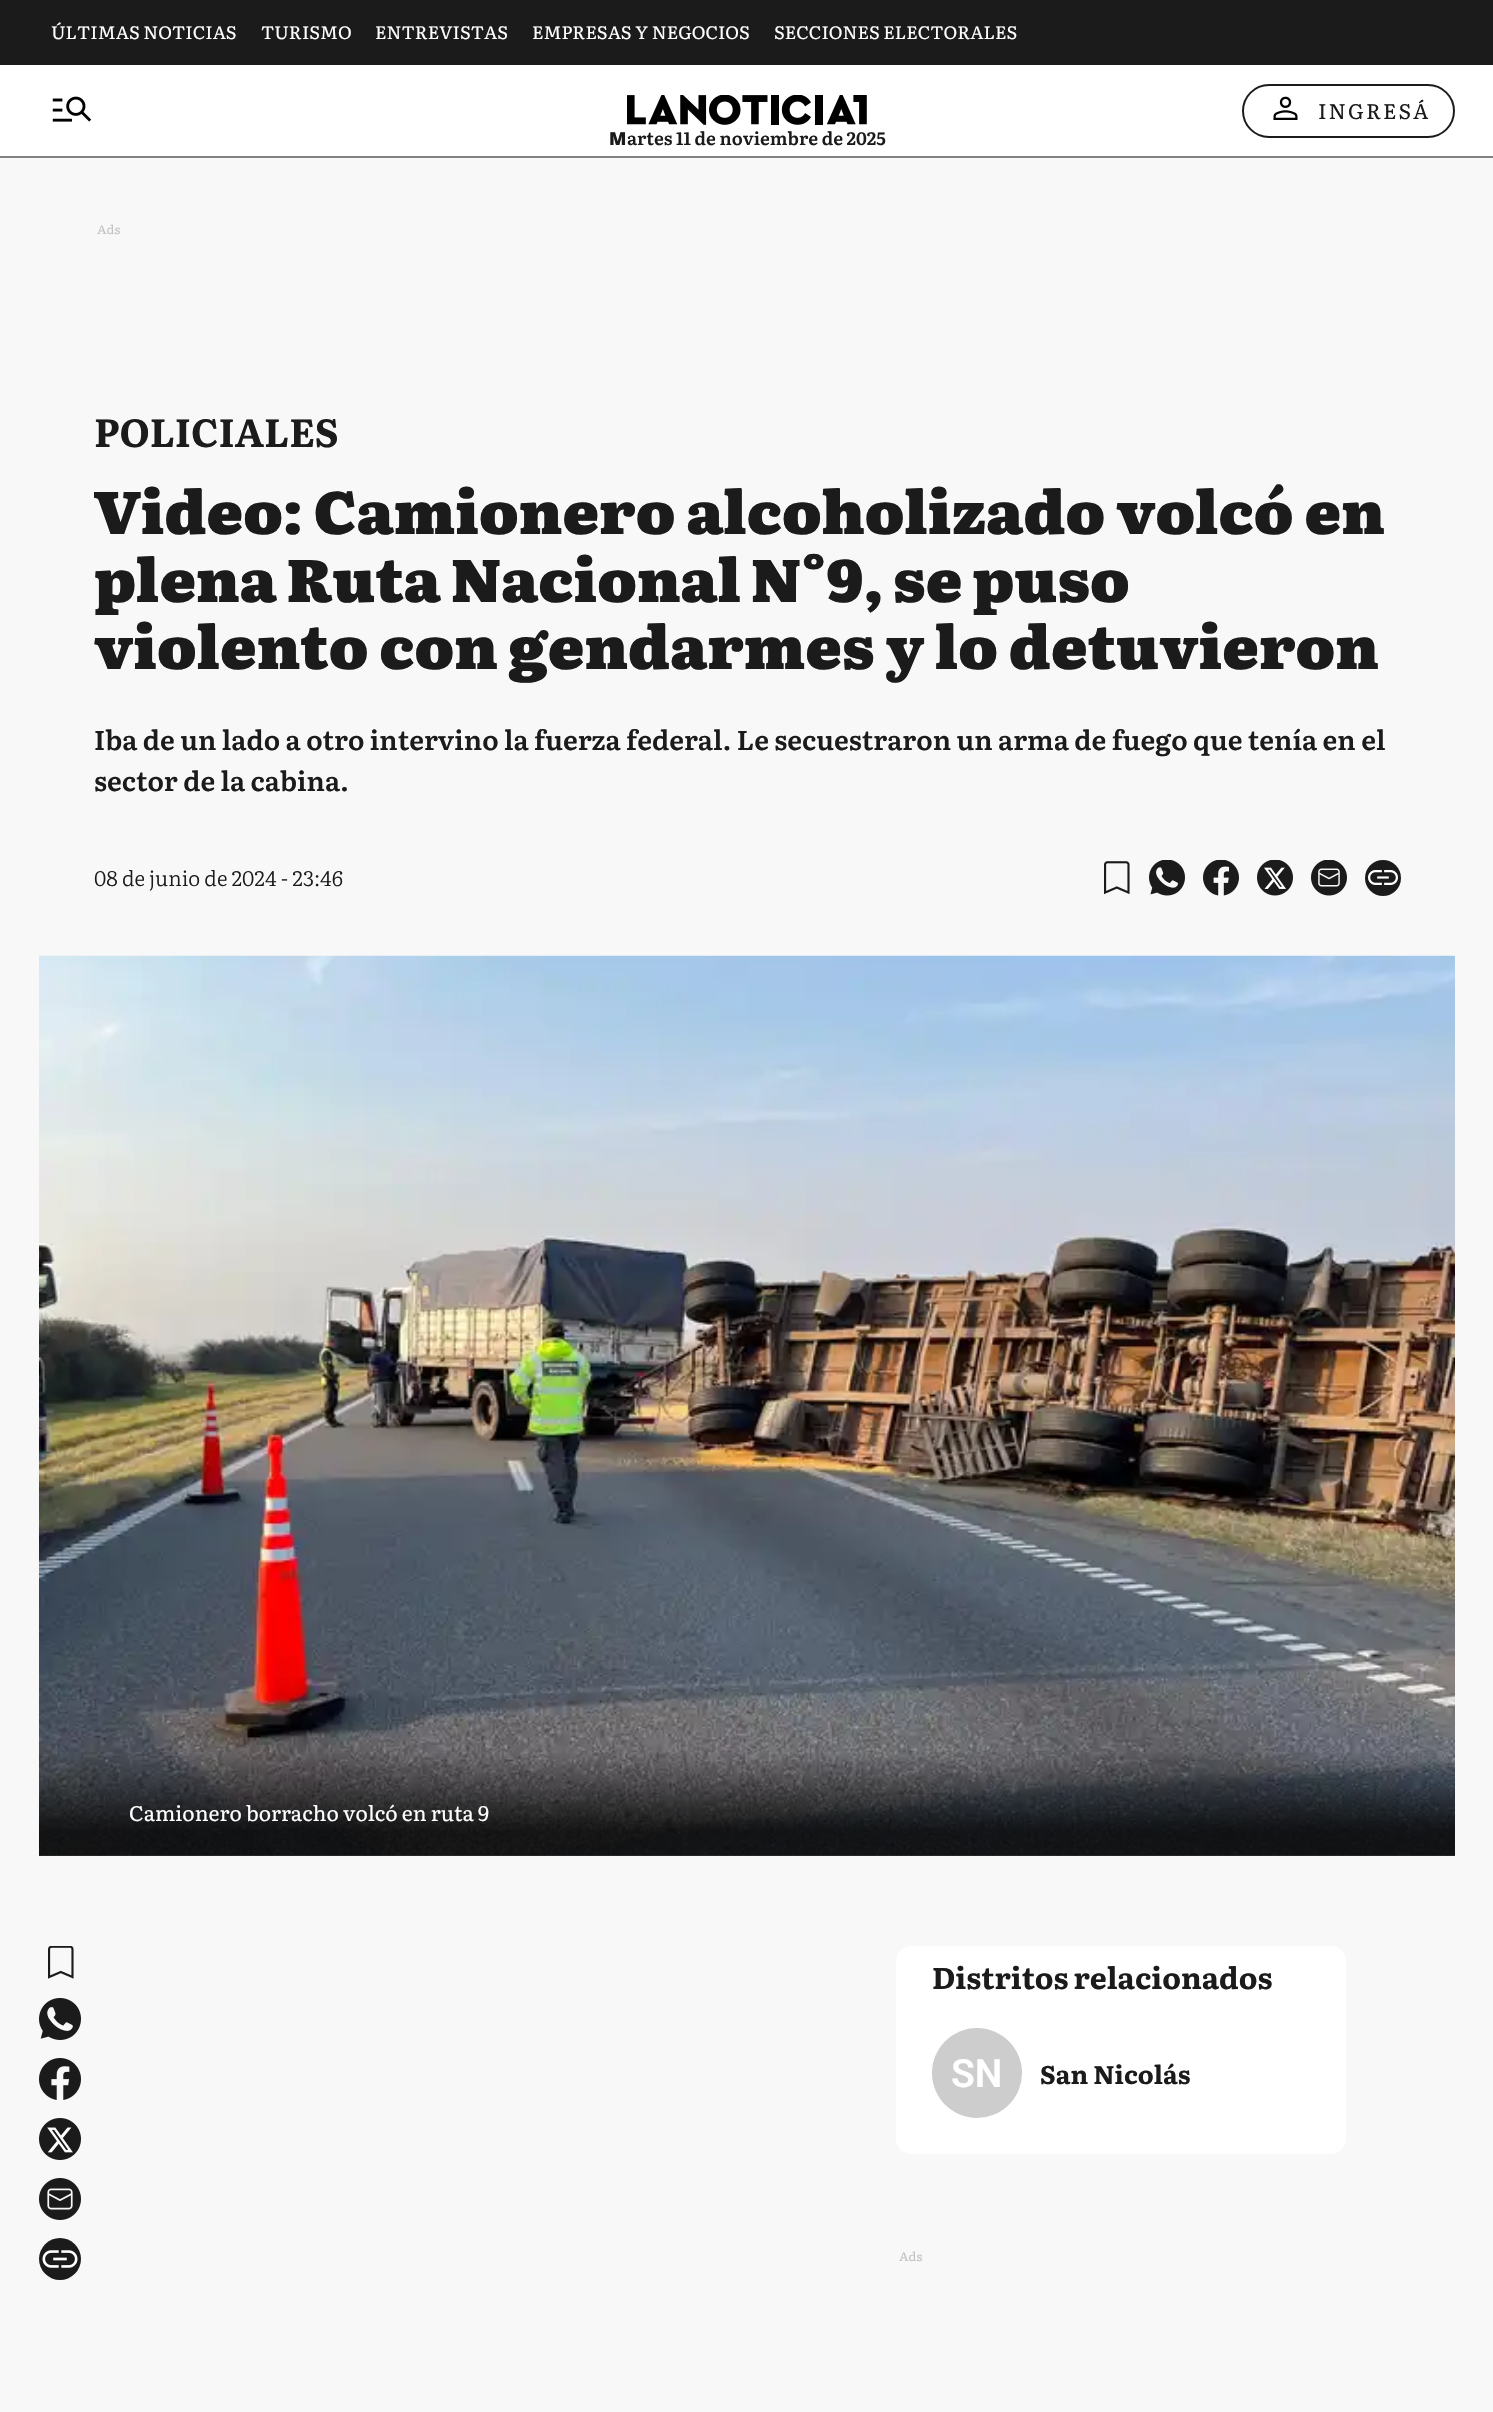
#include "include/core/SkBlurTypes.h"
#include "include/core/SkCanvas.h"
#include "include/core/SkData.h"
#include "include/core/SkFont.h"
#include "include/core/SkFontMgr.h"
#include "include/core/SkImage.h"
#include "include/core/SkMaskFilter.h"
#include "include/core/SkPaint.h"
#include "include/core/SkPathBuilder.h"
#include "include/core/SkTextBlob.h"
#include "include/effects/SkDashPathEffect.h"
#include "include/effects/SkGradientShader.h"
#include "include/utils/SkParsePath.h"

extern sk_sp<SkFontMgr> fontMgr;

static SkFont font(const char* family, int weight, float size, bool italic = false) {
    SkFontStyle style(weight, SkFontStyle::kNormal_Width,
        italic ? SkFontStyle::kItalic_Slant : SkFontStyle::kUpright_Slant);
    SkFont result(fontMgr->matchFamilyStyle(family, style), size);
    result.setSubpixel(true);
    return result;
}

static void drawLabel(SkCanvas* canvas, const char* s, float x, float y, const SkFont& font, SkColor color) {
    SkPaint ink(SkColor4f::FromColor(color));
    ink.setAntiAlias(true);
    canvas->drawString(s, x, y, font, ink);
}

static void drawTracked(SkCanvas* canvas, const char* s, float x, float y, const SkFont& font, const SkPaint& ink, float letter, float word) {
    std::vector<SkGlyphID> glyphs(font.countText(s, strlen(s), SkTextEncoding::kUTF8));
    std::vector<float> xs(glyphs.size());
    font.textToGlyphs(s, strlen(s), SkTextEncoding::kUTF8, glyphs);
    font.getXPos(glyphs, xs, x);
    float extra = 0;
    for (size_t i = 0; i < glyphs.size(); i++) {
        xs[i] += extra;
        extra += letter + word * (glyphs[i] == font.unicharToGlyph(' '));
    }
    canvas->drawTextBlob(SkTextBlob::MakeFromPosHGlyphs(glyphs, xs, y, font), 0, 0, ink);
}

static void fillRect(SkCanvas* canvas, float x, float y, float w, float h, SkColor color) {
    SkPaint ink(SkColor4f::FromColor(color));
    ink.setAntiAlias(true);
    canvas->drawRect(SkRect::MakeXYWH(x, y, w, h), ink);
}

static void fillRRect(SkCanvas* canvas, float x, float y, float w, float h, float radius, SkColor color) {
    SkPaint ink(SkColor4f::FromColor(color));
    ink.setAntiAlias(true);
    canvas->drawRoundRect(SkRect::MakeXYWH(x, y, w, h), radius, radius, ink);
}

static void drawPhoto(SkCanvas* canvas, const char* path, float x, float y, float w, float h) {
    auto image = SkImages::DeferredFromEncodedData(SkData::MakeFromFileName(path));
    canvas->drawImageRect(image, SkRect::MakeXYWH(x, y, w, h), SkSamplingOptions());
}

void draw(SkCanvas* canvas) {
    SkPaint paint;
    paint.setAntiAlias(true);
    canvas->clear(0xFFFFFFFF);
    fillRect(canvas, 0, 0, 1493, 65, 0xFF1B1B1B);
    SkFont font1 = font("Literata", 400, 18);
    drawLabel(canvas, "ÚLTIMAS NOTICIAS", 51, 39, font1, 0xFFFFFFFF);
    drawLabel(canvas, "TURISMO", 261, 39, font1, 0xFFFFFFFF);
    drawLabel(canvas, "ENTREVISTAS", 375, 39, font1, 0xFFFFFFFF);
    drawLabel(canvas, "EMPRESAS Y NEGOCIOS", 532, 39, font1, 0xFFFFFFFF);
    drawLabel(canvas, "SECCIONES ELECTORALES", 774, 39, font1, 0xFFFFFFFF);
    fillRect(canvas, 0, 156, 1493, 2, 0xFF818181);
    drawPhoto(canvas, "assets/img1.png", 52, 96, 40, 26);
    drawPhoto(canvas, "assets/img2.png", 627, 95, 240, 30);
    paint.setStroke(true);
    paint.setStrokeWidth(2);
    paint.setColor(0xFF1B1B1B);
    canvas->drawRoundRect(SkRect::MakeXYWH(1243, 85, 211, 52), 26, 26, paint);
    drawPhoto(canvas, "assets/img3.png", 1273, 96, 25, 24);
    SkFont font2 = font("Literata", 400, 21);
    paint.setStroke(false);
    drawTracked(canvas, "INGRESÁ", 1318, 119, font2, paint, 2, 0);
    SkFont font3 = font("Noto Sans", 900, 18);
    drawLabel(canvas, "M", 609, 145, font3, 0xFF1B1B1B);
    SkFont font4 = font("Literata", 600, 18);
    drawLabel(canvas, "artes 11 de noviembre de 2025", 627, 145, font4, 0xFF1B1B1B);
    fillRect(canvas, 0, 158, 1493, 2254, 0xFFF8F8F8);
    SkFont font5 = font("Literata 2", 400, 12);
    drawLabel(canvas, "Ads", 97, 234, font5, 0xFFC2C2C2);
    SkFont font6 = font("Literata", 700, 39);
    drawLabel(canvas, "POLICIALES", 94, 447, font6, 0xFF1B1B1B);
    SkFont font7 = font("Literata", 900, 60);
    drawTracked(canvas, "Video: Camionero alcoholizado volcó en", 94, 534, font7, paint, 0, -1);
    drawTracked(canvas, "plena Ruta Nacional N°9, se puso", 94, 602, font7, paint, 0, -2.25f);
    drawTracked(canvas, "violento con gendarmes y lo detuvieron", 94, 669, font7, paint, 0, -1.25f);
    SkFont font8 = font("Literata", 600, 27);
    drawLabel(canvas, "Iba de un lado a otro intervino la fuerza federal. Le secuestraron un arma de fuego que tenía en el", 94, 750, font8, 0xFF1B1B1B);
    drawLabel(canvas, "sector de la cabina.", 94, 791, font8, 0xFF1B1B1B);
    SkFont font9 = font("Literata", 300, 21);
    drawLabel(canvas, "08 de junio de 2024 - 23:46", 94, 886, font9, 0xFF1B1B1B);
    drawPhoto(canvas, "assets/img4.png", 1104, 861, 26, 34);
    drawPhoto(canvas, "assets/img5.png", 1149, 860, 36, 36);
    drawPhoto(canvas, "assets/img6.png", 1203, 860, 36, 36);
    drawPhoto(canvas, "assets/img7.png", 1257, 860, 36, 36);
    drawPhoto(canvas, "assets/img8.png", 1311, 860, 36, 36);
    canvas->drawCircle(1383, 878, 18, paint);
    drawPhoto(canvas, "assets/img9.png", 1368, 870, 30, 15);
    drawPhoto(canvas, "assets/img10.png", 39, 955, 1416, 901);
    {
        const SkColor colors[] = {0x00070707, 0xD9070707};
        const float stops[] = {0, 0.76f};
        const SkPoint ends[] = {{747, 1751}, {747, 1856}};
        paint.setShader(SkGradientShader::MakeLinear(ends, colors, stops, 2, SkTileMode::kClamp));
        paint.setAlpha(255);
    }
    canvas->drawRect(SkRect::MakeXYWH(39, 1753, 1416, 103), paint);
    drawLabel(canvas, "Camionero borracho volcó en ruta 9", 129, 1821, font2, 0xFFFFFFFF);
    drawPhoto(canvas, "assets/img11.png", 48, 1946, 26, 33);
    drawPhoto(canvas, "assets/img12.png", 39, 1998, 42, 42);
    drawPhoto(canvas, "assets/img13.png", 39, 2058, 42, 42);
    drawPhoto(canvas, "assets/img14.png", 39, 2118, 42, 42);
    drawPhoto(canvas, "assets/img15.png", 39, 2178, 42, 42);
    paint.setShader(nullptr);
    paint.setColor(0xFF1B1B1B);
    canvas->drawCircle(60, 2259, 21, paint);
    drawPhoto(canvas, "assets/img16.png", 42, 2250, 36, 18);
    fillRRect(canvas, 896, 1946, 450, 208, 15, 0xFFFFFFFF);
    SkFont font10 = font("Literata 2", 700, 30);
    drawTracked(canvas, "Distritos relacionados", 932, 1989, font10, paint, 0, -1);
    paint.setColor(0xFFCDCDCD);
    canvas->drawCircle(977, 2073, 45, paint);
    SkFont font11 = font("Roboto", 600, 39);
    drawLabel(canvas, "SN", 951, 2087, font11, 0xFFFFFFFF);
    SkFont font12 = font("Literata 2", 700, 25.5f);
    drawLabel(canvas, "San Nicolás", 1040, 2084, font12, 0xFF1B1B1B);
    drawLabel(canvas, "Ads", 899, 2261, font5, 0xFFC2C2C2);
}
